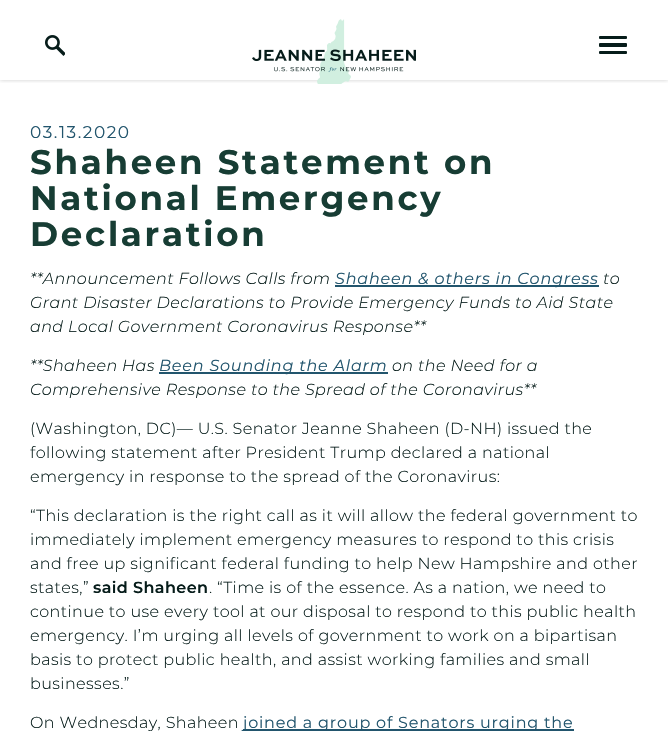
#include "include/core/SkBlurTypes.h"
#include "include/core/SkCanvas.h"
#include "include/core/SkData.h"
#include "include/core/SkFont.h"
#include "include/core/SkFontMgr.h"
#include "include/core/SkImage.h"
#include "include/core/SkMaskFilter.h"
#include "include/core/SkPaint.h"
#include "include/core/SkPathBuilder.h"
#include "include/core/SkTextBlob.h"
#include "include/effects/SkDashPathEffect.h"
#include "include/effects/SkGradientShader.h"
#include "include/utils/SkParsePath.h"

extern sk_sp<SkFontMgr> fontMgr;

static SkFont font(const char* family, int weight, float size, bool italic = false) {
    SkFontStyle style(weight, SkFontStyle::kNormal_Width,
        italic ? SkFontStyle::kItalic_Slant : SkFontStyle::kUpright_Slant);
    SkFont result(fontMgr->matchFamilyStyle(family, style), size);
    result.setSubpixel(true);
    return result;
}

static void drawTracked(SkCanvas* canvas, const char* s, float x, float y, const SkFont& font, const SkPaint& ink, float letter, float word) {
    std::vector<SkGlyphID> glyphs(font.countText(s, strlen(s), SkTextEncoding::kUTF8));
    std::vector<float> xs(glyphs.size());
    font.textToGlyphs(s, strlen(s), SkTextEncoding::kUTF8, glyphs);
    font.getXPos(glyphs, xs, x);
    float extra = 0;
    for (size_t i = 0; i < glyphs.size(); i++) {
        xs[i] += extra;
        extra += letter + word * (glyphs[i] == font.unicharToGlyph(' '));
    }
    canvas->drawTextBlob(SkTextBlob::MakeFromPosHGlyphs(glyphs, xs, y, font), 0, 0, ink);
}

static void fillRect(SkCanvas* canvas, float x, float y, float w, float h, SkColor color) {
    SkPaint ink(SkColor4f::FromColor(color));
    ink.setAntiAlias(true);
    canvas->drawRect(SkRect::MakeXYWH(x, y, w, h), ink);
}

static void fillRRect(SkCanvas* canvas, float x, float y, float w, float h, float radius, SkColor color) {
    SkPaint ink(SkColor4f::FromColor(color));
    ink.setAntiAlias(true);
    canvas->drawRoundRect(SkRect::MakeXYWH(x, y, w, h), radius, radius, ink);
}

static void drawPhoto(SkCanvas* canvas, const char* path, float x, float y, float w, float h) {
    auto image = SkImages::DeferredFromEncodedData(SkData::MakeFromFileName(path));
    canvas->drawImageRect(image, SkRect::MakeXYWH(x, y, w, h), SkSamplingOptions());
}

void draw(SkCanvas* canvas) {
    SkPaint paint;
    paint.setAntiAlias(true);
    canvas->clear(0xFFFFFFFF);
    canvas->save();
    canvas->clipRect(SkRect::MakeXYWH(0, 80, 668, 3));
    paint.setColor(0x33000000);
    paint.setMaskFilter(SkMaskFilter::MakeBlur(kNormal_SkBlurStyle, 2));
    canvas->drawRect(SkRect::MakeXYWH(0, 0, 668, 80), paint);
    paint.setMaskFilter(nullptr);
    canvas->restore();
    drawPhoto(canvas, "assets/img1.png", 45, 35, 20, 21);
    drawPhoto(canvas, "assets/img2.png", 252, 19, 164, 65);
    fillRRect(canvas, 599, 36, 28, 3, 1, 0xFF061C1A);
    fillRRect(canvas, 599, 43, 28, 4, 1, 0xFF061C1A);
    fillRRect(canvas, 599, 51, 28, 3, 1, 0xFF061C1A);
    SkFont font1 = font("Montserrat", 400, 17);
    paint.setColor(0xFF22556D);
    drawTracked(canvas, "03.13.2020", 30, 138, font1, paint, 1.5f, 0);
    SkFont font2 = font("Montserrat", 700, 34);
    paint.setColor(0xFF173D34);
    drawTracked(canvas, "Shaheen Statement on", 30, 174, font2, paint, 2.75f, 0);
    drawTracked(canvas, "National Emergency", 30, 210, font2, paint, 2.75f, 0);
    drawTracked(canvas, "Declaration", 30, 246, font2, paint, 2.75f, 0);
    SkFont font3 = font("Montserrat", 300, 16, true);
    paint.setColor(0xFF061C1A);
    drawTracked(canvas, "**Announcement Follows Calls from", 30, 284, font3, paint, 0.4f, 0);
    fillRect(canvas, 335, 285, 264, 2, 0xFF22556D);
    SkFont font4 = font("Montserrat", 400, 16, true);
    paint.setColor(0xFF22556D);
    drawTracked(canvas, "Shaheen & others in Congress", 335, 284, font4, paint, 0.8f, 0);
    paint.setColor(0xFF061C1A);
    drawTracked(canvas, "to", 603, 284, font3, paint, 0.4f, 0);
    drawTracked(canvas, "Grant Disaster Declarations to Provide Emergency Funds to Aid State", 30, 308, font3, paint, 0.4f, 0);
    drawTracked(canvas, "and Local Government Coronavirus Response**", 30, 332, font3, paint, 0.4f, 0);
    drawTracked(canvas, "**Shaheen Has", 30, 371, font3, paint, 0.4f, 0);
    fillRect(canvas, 159, 372, 229, 2, 0xFF22556D);
    paint.setColor(0xFF22556D);
    drawTracked(canvas, "Been Sounding the Alarm", 159, 371, font4, paint, 0.8f, 0);
    paint.setColor(0xFF061C1A);
    drawTracked(canvas, "on the Need for a", 392, 371, font3, paint, 0.4f, 0);
    drawTracked(canvas, "Comprehensive Response to the Spread of the Coronavirus**", 30, 395, font3, paint, 0.4f, 0);
    SkFont font5 = font("Montserrat", 300, 16);
    drawTracked(canvas, "(Washington, DC)— U.S. Senator Jeanne Shaheen (D-NH) issued the", 30, 434, font5, paint, 0.4f, 0);
    drawTracked(canvas, "following statement after President Trump declared a national", 30, 458, font5, paint, 0.4f, 0);
    drawTracked(canvas, "emergency in response to the spread of the Coronavirus:", 30, 482, font5, paint, 0.4f, 0);
    drawTracked(canvas, "“This declaration is the right call as it will allow the federal government to", 30, 521, font5, paint, 0.4f, 0);
    drawTracked(canvas, "immediately implement emergency measures to respond to this crisis", 30, 545, font5, paint, 0.4f, 0);
    drawTracked(canvas, "and free up significant federal funding to help New Hampshire and other", 30, 569, font5, paint, 0.4f, 0);
    drawTracked(canvas, "states,”", 30, 593, font5, paint, 0.4f, 0);
    SkFont font6 = font("Montserrat", 600, 16);
    drawTracked(canvas, "said Shaheen", 93, 593, font6, paint, 0.4f, 0);
    drawTracked(canvas, ". “Time is of the essence. As a nation, we need to", 209, 593, font5, paint, 0.4f, 0);
    drawTracked(canvas, "continue to use every tool at our disposal to respond to this public health", 30, 617, font5, paint, 0.4f, 0);
    drawTracked(canvas, "emergency. I’m urging all levels of government to work on a bipartisan", 30, 641, font5, paint, 0.4f, 0);
    drawTracked(canvas, "basis to protect public health, and assist working families and small", 30, 665, font5, paint, 0.4f, 0);
    drawTracked(canvas, "businesses.”", 30, 689, font5, paint, 0.4f, 0);
    drawTracked(canvas, "On Wednesday, Shaheen", 30, 728, font5, paint, 0.4f, 0);
    fillRect(canvas, 243, 729, 331, 2, 0xFF22556D);
    SkFont font7 = font("Montserrat", 400, 16);
    paint.setColor(0xFF22556D);
    drawTracked(canvas, "joined a group of Senators urging the", 243, 728, font7, paint, 0.8f, 0);
}
